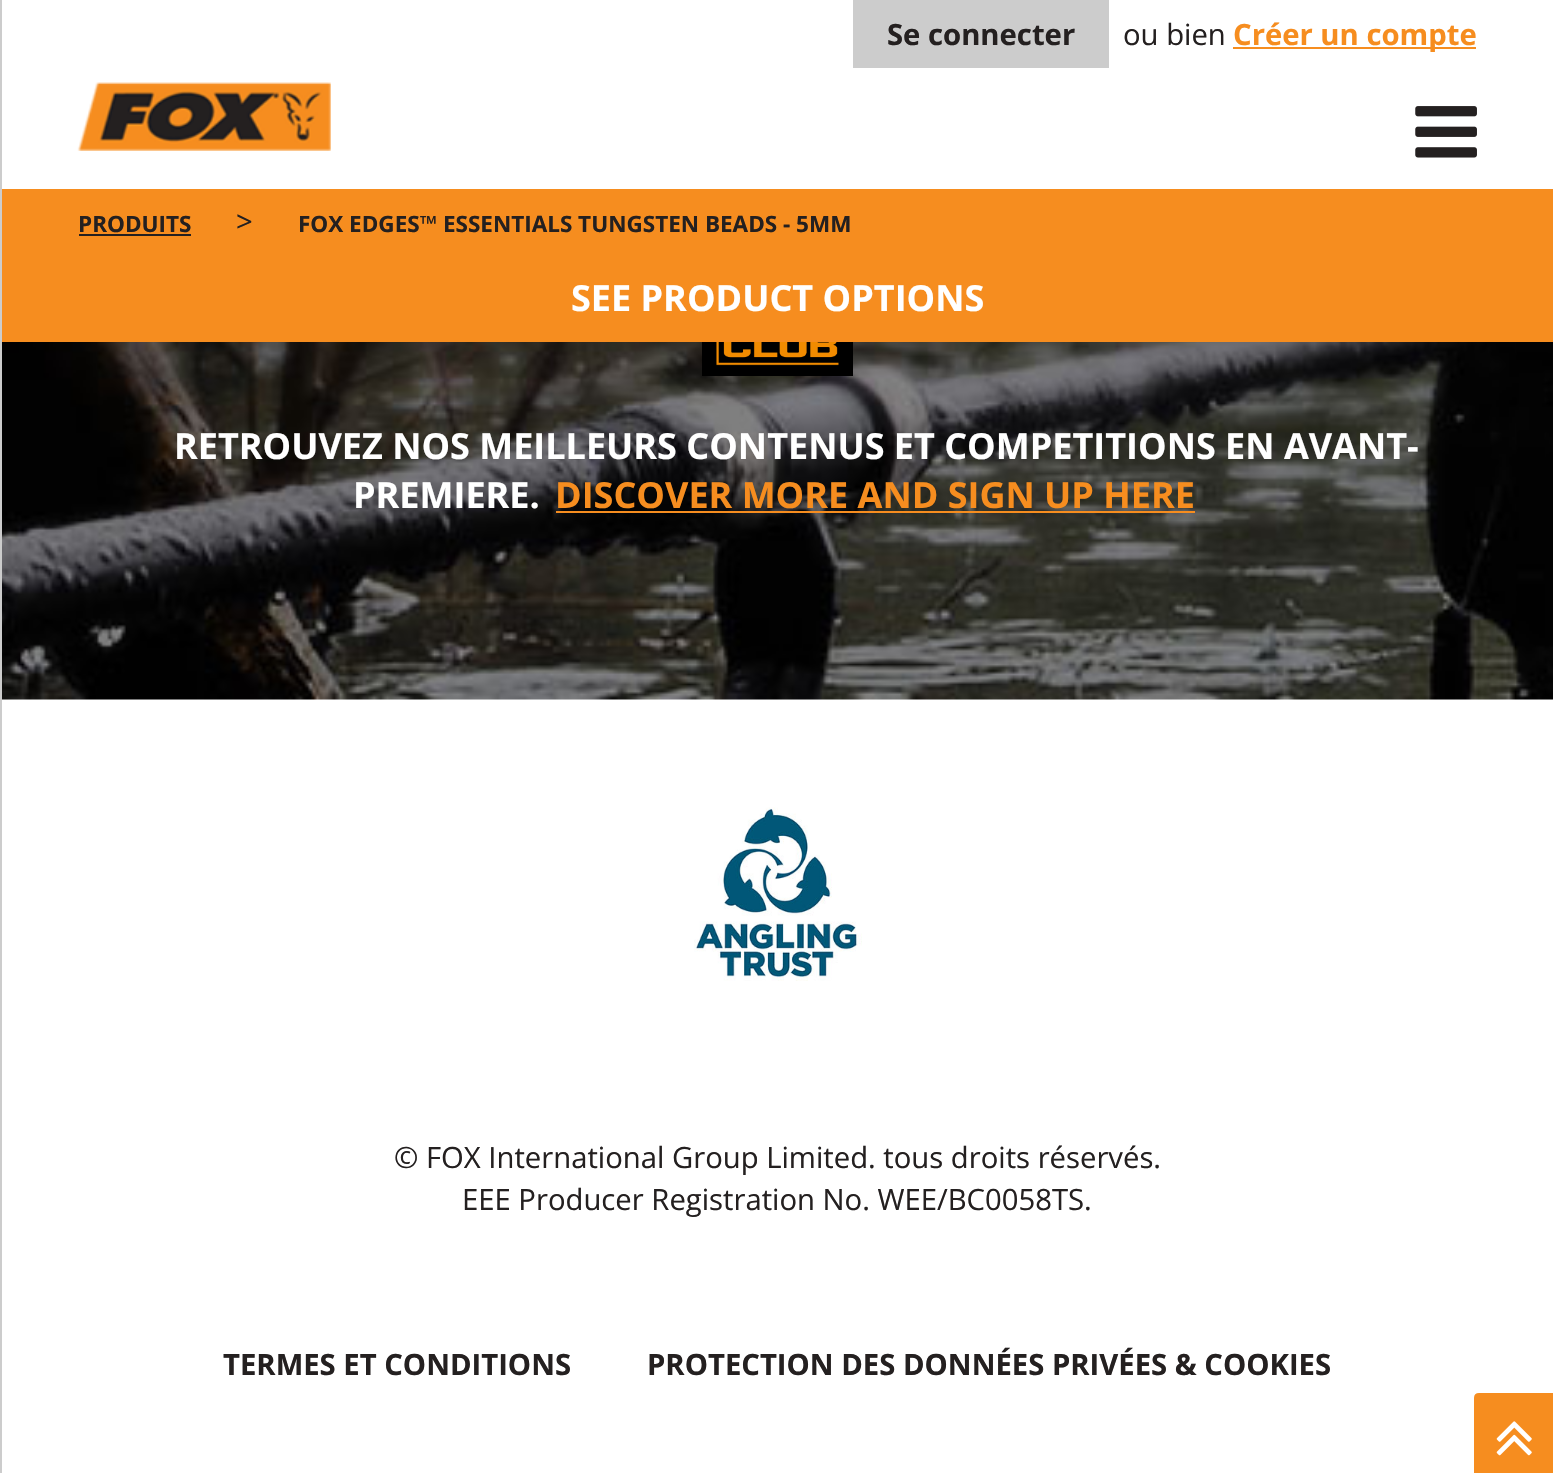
#include "include/core/SkBlurTypes.h"
#include "include/core/SkCanvas.h"
#include "include/core/SkData.h"
#include "include/core/SkFont.h"
#include "include/core/SkFontMgr.h"
#include "include/core/SkImage.h"
#include "include/core/SkMaskFilter.h"
#include "include/core/SkPaint.h"
#include "include/core/SkPathBuilder.h"
#include "include/core/SkTextBlob.h"
#include "include/effects/SkDashPathEffect.h"
#include "include/effects/SkGradientShader.h"
#include "include/utils/SkParsePath.h"

extern sk_sp<SkFontMgr> fontMgr;

static SkFont font(const char* family, int weight, float size, bool italic = false) {
    SkFontStyle style(weight, SkFontStyle::kNormal_Width,
        italic ? SkFontStyle::kItalic_Slant : SkFontStyle::kUpright_Slant);
    SkFont result(fontMgr->matchFamilyStyle(family, style), size);
    result.setSubpixel(true);
    return result;
}

static void drawLabel(SkCanvas* canvas, const char* s, float x, float y, const SkFont& font, SkColor color) {
    SkPaint ink(SkColor4f::FromColor(color));
    ink.setAntiAlias(true);
    canvas->drawString(s, x, y, font, ink);
}

static void fillRect(SkCanvas* canvas, float x, float y, float w, float h, SkColor color) {
    SkPaint ink(SkColor4f::FromColor(color));
    ink.setAntiAlias(true);
    canvas->drawRect(SkRect::MakeXYWH(x, y, w, h), ink);
}

static void drawPhoto(SkCanvas* canvas, const char* path, float x, float y, float w, float h) {
    auto image = SkImages::DeferredFromEncodedData(SkData::MakeFromFileName(path));
    canvas->drawImageRect(image, SkRect::MakeXYWH(x, y, w, h), SkSamplingOptions());
}

static SkPath parsePath(const char* data, bool evenOdd = false) {
    SkPath result = *SkParsePath::FromSVGString(data);
    if (evenOdd) result.setFillType(SkPathFillType::kEvenOdd);
    return result;
}

void draw(SkCanvas* canvas) {
    SkPaint paint;
    paint.setAntiAlias(true);
    canvas->clear(0xFFFFFFFF);
    fillRect(canvas, 0, 0, 2, 1473, 0xFFCCCCCC);
    fillRect(canvas, 853, 0, 256, 68, 0xFFCCCCCC);
    SkFont font1 = font("Open Sans", 700, 29.25f);
    drawLabel(canvas, "Se connecter", 887, 45, font1, 0xFF242020);
    SkFont font2 = font("Open Sans", 400, 29.25f);
    drawLabel(canvas, "ou bien", 1123, 45, font2, 0xFF242020);
    fillRect(canvas, 1233, 47, 243, 2, 0xFFF68D1F);
    drawLabel(canvas, "Créer un compte", 1233, 45, font1, 0xFFF68D1F);
    drawPhoto(canvas, "assets/img1.png", 1415, 106, 62, 52);
    drawPhoto(canvas, "assets/img2.png", 77, 82, 254, 69);
    fillRect(canvas, 2, 189, 1551, 153, 0xFFF68D1F);
    SkFont font3 = font("Open Sans", 700, 22.5f);
    drawLabel(canvas, "PRODUITS", 78, 232, font3, 0xFF242020);
    fillRect(canvas, 79, 234, 112, 2, 0xFF242020);
    drawLabel(canvas, ">", 236, 232, font2, 0xFF242020);
    drawLabel(canvas, "FOX EDGES™ ESSENTIALS TUNGSTEN BEADS - 5MM", 298, 232, font3, 0xFF242020);
    SkFont font4 = font("Open Sans", 700, 36);
    drawLabel(canvas, "SEE PRODUCT OPTIONS", 571, 311, font4, 0xFFFFFFFF);
    drawPhoto(canvas, "assets/img3.png", 2, 342, 1551, 358);
    fillRect(canvas, 702, 342, 151, 34, 0xFF000000);
    drawPhoto(canvas, "assets/img4.png", 716, 342, 123, 24);
    drawLabel(canvas, "RETROUVEZ NOS MEILLEURS CONTENUS ET COMPETITIONS EN AVANT-", 174, 459, font4, 0xFFFFFFFF);
    drawLabel(canvas, "PREMIERE.", 353, 508, font4, 0xFFFFFFFF);
    drawLabel(canvas, "DISCOVER MORE AND SIGN UP HERE", 555, 508, font4, 0xFFF68D1F);
    fillRect(canvas, 556, 511, 639, 2, 0xFFF68D1F);
    drawPhoto(canvas, "assets/img5.png", 694, 807, 168, 174);
    drawLabel(canvas, "© FOX International Group Limited. tous droits réservés.", 394, 1168, font2, 0xFF242020);
    drawLabel(canvas, "EEE Producer Registration No. WEE/BC0058TS.", 462, 1210, font2, 0xFF242020);
    drawLabel(canvas, "TERMES ET CONDITIONS", 223, 1375, font1, 0xFF242020);
    drawLabel(canvas, "PROTECTION DES DONNÉES PRIVÉES & COOKIES", 647, 1375, font1, 0xFF242020);
    paint.setColor(0xFFF68D1F);
    canvas->drawPath(parsePath("M1479 1395.5H1552.5V1471.5H1476.5V1398C1476.5 1396.5 1477.5 1395.5 1479 1395.5Z"), paint);
    paint.setStroke(true);
    paint.setStrokeWidth(5);
    canvas->drawPath(parsePath("M1479 1395.5H1552.5V1471.5H1476.5V1398C1476.5 1396.5 1477.5 1395.5 1479 1395.5Z"), paint);
    drawPhoto(canvas, "assets/img6.png", 1496, 1421, 36, 35);
}
